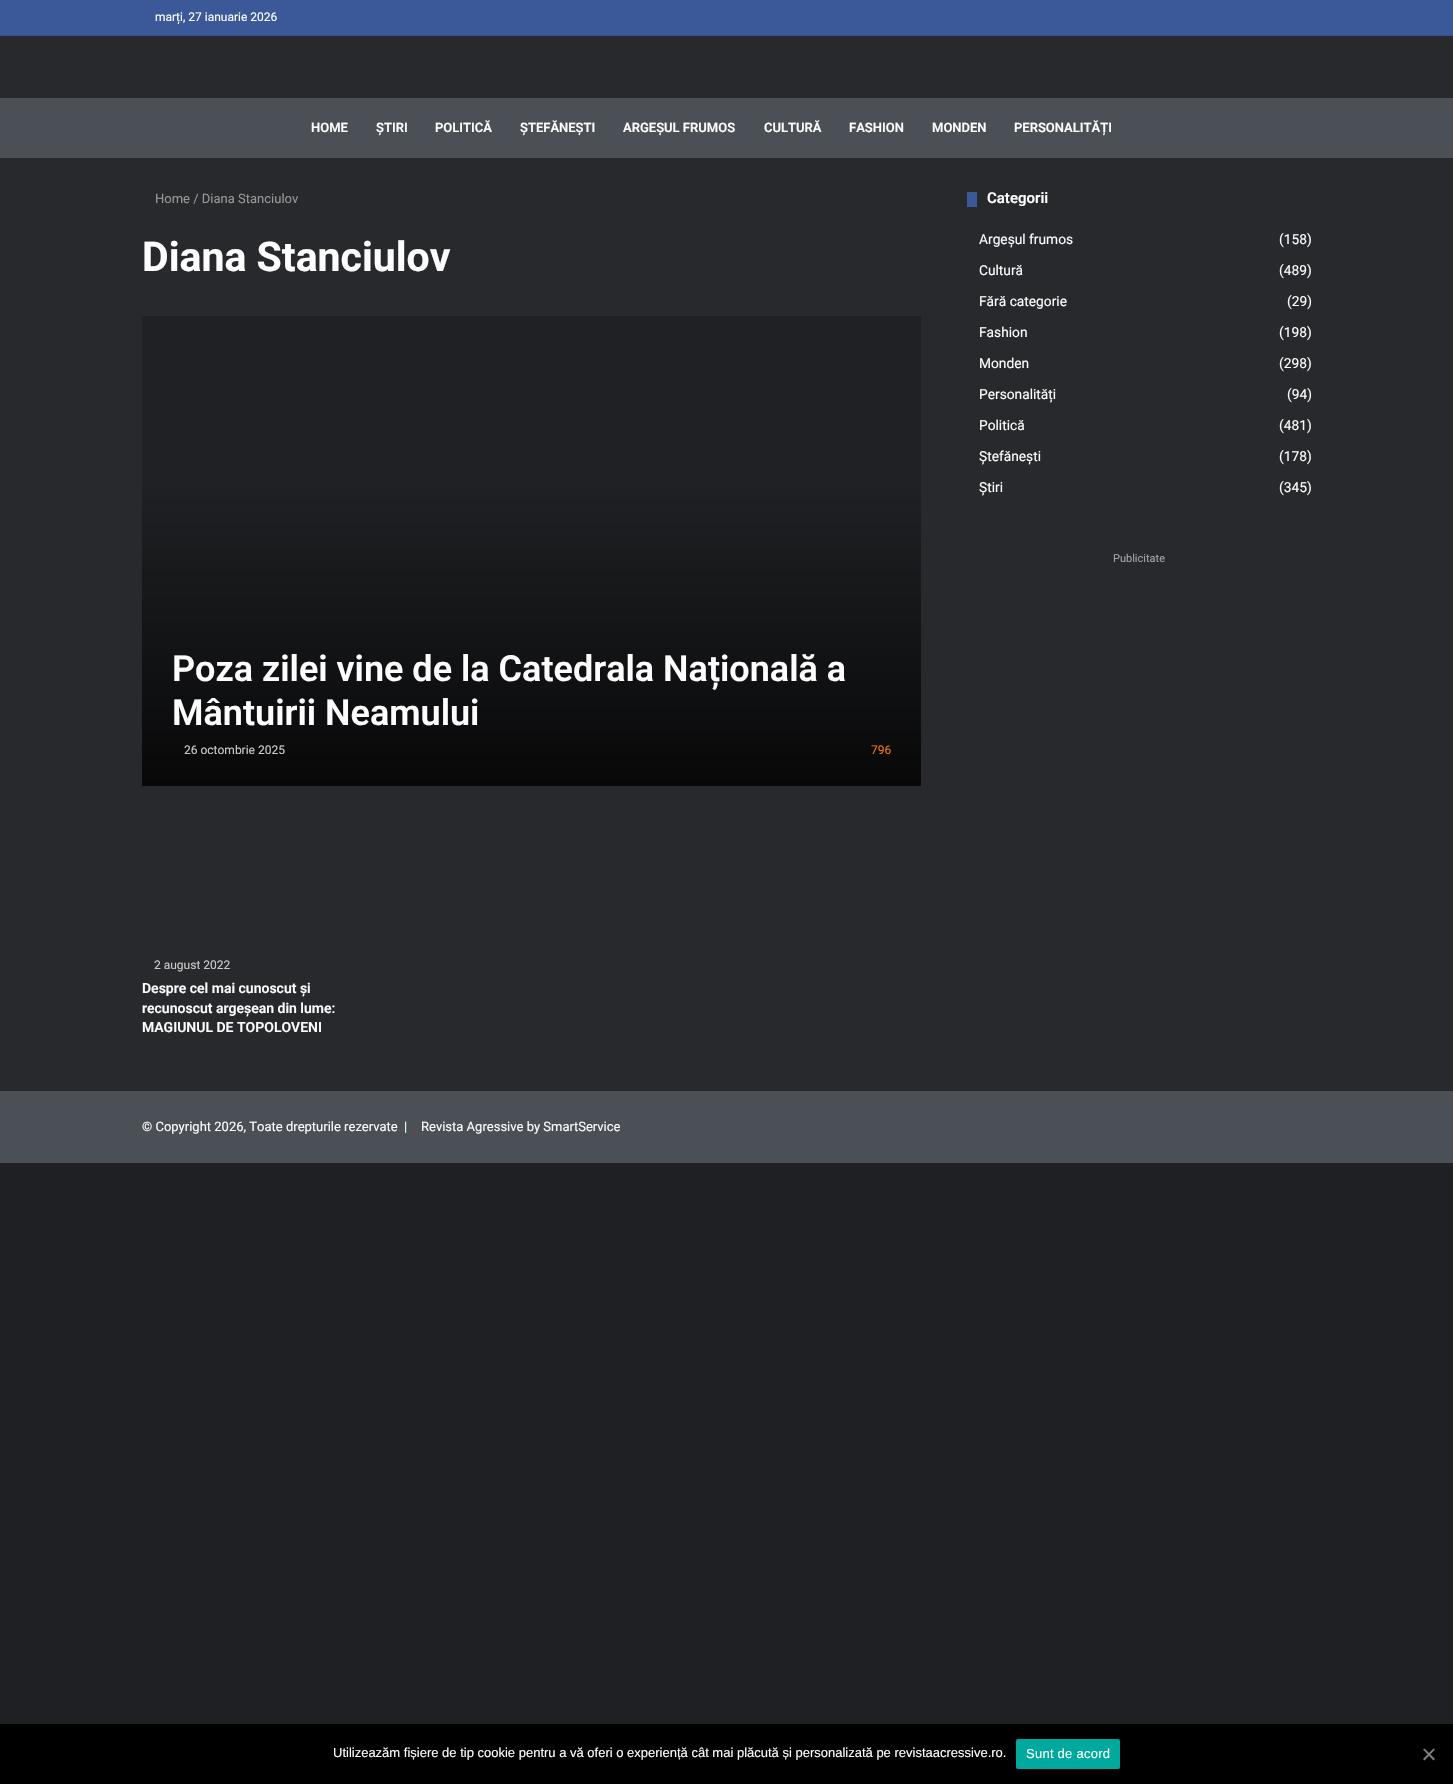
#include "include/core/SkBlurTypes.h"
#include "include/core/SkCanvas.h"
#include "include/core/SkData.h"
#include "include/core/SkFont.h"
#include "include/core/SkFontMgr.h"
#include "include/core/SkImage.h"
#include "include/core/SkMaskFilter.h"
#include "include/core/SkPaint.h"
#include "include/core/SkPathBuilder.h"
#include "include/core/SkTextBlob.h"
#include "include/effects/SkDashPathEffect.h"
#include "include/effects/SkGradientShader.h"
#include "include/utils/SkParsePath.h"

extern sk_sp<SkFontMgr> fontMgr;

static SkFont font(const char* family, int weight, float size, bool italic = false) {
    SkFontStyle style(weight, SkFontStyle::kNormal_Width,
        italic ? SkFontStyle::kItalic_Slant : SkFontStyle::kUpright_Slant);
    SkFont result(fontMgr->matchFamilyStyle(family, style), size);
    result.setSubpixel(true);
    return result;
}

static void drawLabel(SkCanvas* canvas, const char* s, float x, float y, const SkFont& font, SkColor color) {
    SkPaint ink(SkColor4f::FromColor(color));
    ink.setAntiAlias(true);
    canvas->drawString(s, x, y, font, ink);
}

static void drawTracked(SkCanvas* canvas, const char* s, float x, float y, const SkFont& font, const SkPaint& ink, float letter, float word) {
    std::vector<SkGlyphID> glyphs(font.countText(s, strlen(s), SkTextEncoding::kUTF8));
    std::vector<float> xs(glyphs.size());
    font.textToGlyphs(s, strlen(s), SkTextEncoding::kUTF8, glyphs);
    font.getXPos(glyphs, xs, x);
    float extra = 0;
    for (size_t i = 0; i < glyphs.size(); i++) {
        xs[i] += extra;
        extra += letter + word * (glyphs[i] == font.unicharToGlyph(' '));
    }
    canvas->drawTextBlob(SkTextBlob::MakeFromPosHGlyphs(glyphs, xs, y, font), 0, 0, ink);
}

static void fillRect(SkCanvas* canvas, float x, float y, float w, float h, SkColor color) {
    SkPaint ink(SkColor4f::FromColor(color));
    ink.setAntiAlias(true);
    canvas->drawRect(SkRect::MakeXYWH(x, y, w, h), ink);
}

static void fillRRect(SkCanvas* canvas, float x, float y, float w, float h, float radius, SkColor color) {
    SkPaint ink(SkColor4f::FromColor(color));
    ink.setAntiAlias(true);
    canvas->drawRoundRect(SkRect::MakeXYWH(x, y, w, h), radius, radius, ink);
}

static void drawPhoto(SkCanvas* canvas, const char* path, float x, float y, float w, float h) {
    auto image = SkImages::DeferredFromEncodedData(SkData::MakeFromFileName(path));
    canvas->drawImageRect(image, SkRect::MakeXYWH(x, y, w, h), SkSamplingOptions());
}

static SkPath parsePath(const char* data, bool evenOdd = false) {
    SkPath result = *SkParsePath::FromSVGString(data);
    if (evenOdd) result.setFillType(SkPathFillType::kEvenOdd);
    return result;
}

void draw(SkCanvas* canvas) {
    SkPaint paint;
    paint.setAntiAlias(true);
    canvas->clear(0xFF1F2024);
    fillRect(canvas, 0, 36, 1453, 1055, 0xFF27292D);
    fillRect(canvas, 0, 0, 1453, 35, 0xFF3B5998);
    fillRect(canvas, 0, 35, 1453, 1, 0xFF355089);
    SkFont font1 = font("Roboto", 400, 12);
    drawLabel(canvas, "marți, 27 ianuarie 2026", 155, 21, font1, 0xFFFDFDFD);
    fillRect(canvas, 0, 98, 1453, 60, 0xFF4B4F56);
    SkFont font2 = font("Roboto", 600, 13);
    drawLabel(canvas, "HOME", 311, 132, font2, 0xFFFDFDFD);
    drawLabel(canvas, "ȘTIRI", 376, 132, font2, 0xFFFDFDFD);
    drawLabel(canvas, "POLITICĂ", 435, 132, font2, 0xFFFDFDFD);
    drawLabel(canvas, "ȘTEFĂNEȘTI", 520, 132, font2, 0xFFFDFDFD);
    drawLabel(canvas, "ARGEȘUL FRUMOS", 623, 132, font2, 0xFFFDFDFD);
    drawLabel(canvas, "CULTURĂ", 764, 132, font2, 0xFFFDFDFD);
    drawLabel(canvas, "FASHION", 849, 132, font2, 0xFFFDFDFD);
    drawLabel(canvas, "MONDEN", 932, 132, font2, 0xFFFDFDFD);
    drawLabel(canvas, "PERSONALITĂȚI", 1014, 132, font2, 0xFFFDFDFD);
    SkFont font3 = font("Roboto", 400, 13);
    drawLabel(canvas, "Home / Diana Stanciulov", 155, 203, font3, 0xFF989898);
    SkFont font4 = font("Roboto", 700, 41);
    drawLabel(canvas, "Diana Stanciulov", 142, 271, font4, 0xFFFDFDFD);
    fillRect(canvas, 142, 316, 779, 165, 0xFF1F2124);
    {
        const SkColor colors[] = {0xFF1F2124, 0xFF080809};
        const float stops[] = {0, 1};
        const SkPoint ends[] = {{532, 481}, {532, 786}};
        paint.setShader(SkGradientShader::MakeLinear(ends, colors, stops, 2, SkTileMode::kClamp));
        paint.setAlpha(255);
    }
    canvas->drawRect(SkRect::MakeXYWH(142, 481, 779, 305), paint);
    SkFont font5 = font("Roboto", 600, 36);
    drawLabel(canvas, "Poza zilei vine de la Catedrala Națională a", 172, 681, font5, 0xFFFDFDFD);
    drawLabel(canvas, "Mântuirii Neamului", 172, 725, font5, 0xFFFDFDFD);
    drawLabel(canvas, "26 octombrie 2025", 184, 754, font1, 0xFFCACACA);
    drawLabel(canvas, "796", 871, 754, font1, 0xFFF27412);
    drawLabel(canvas, "2 august 2022", 154, 969, font1, 0xFFCACACA);
    SkFont font6 = font("Roboto", 600, 14);
    drawLabel(canvas, "Despre cel mai cunoscut și", 142, 993, font6, 0xFFFDFDFD);
    drawLabel(canvas, "recunoscut argeșean din lume:", 142, 1013, font6, 0xFFFDFDFD);
    drawLabel(canvas, "MAGIUNUL DE TOPOLOVENI", 142, 1032, font6, 0xFFFDFDFD);
    fillRect(canvas, 967, 192, 10, 15, 0xFF3B5997);
    SkFont font7 = font("Roboto", 600, 15);
    drawLabel(canvas, "Categorii", 987, 203, font7, 0xFFFDFDFD);
    SkFont font8 = font("Roboto", 400, 13.75f);
    drawLabel(canvas, "Argeșul frumos", 979, 244, font8, 0xFFFDFDFD);
    drawLabel(canvas, "(158)", 1279, 244, font8, 0xFFFDFDFD);
    drawLabel(canvas, "Cultură", 979, 275, font8, 0xFFFDFDFD);
    drawLabel(canvas, "(489)", 1279, 275, font8, 0xFFFDFDFD);
    drawLabel(canvas, "Fără categorie", 979, 306, font8, 0xFFFDFDFD);
    drawLabel(canvas, "(29)", 1287, 306, font8, 0xFFFDFDFD);
    drawLabel(canvas, "Fashion", 979, 337, font8, 0xFFFDFDFD);
    drawLabel(canvas, "(198)", 1279, 337, font8, 0xFFFDFDFD);
    drawLabel(canvas, "Monden", 979, 368, font8, 0xFFFDFDFD);
    drawLabel(canvas, "(298)", 1279, 368, font8, 0xFFFDFDFD);
    drawLabel(canvas, "Personalități", 979, 399, font8, 0xFFFDFDFD);
    drawLabel(canvas, "(94)", 1287, 399, font8, 0xFFFDFDFD);
    drawLabel(canvas, "Politică", 979, 430, font8, 0xFFFDFDFD);
    drawLabel(canvas, "(481)", 1279, 430, font8, 0xFFFDFDFD);
    drawLabel(canvas, "Ștefănești", 979, 461, font8, 0xFFFDFDFD);
    drawLabel(canvas, "(178)", 1279, 461, font8, 0xFFFDFDFD);
    drawLabel(canvas, "Știri", 979, 492, font8, 0xFFFDFDFD);
    drawLabel(canvas, "(345)", 1279, 492, font8, 0xFFFDFDFD);
    SkFont font9 = font("Roboto", 400, 11);
    drawLabel(canvas, "Publicitate", 1113, 562, font9, 0xFFA5A5A5);
    fillRect(canvas, 0, 1091, 1453, 72, 0xFF4B4F56);
    drawLabel(canvas, "© Copyright 2026, Toate drepturile rezervate  |", 142, 1131, font3, 0xFFFDFDFD);
    drawPhoto(canvas, "assets/img1.png", 413, 1131, 2, 3);
    drawLabel(canvas, "Revista Agressive by SmartService", 421, 1131, font3, 0xFFFDFDFD);
    fillRect(canvas, 0, 1724, 1453, 60, 0xFF000000);
    SkFont font10 = font("Liberation Sans", 400, 13);
    drawLabel(canvas, "Utilizeazăm fișiere de tip cookie pentru a vă oferi o experiență cât mai plăcută și personalizată pe revistaacressive.ro.", 333, 1757, font10, 0xFFFDFDFD);
    fillRRect(canvas, 1016, 1739, 104, 30, 2, 0xFF00A99D);
    paint.setShader(nullptr);
    paint.setColor(0xFFFDFDFD);
    drawTracked(canvas, "Sunt de acord", 1026, 1758, font10, paint, 0.25f, 0);
    paint.setColor(0xFF808080);
    canvas->drawPath(parsePath("M1433.5 1748.5L1435 1749.5L1424.5 1760.5L1423 1759Z"), paint);
    canvas->drawPath(parsePath("M1423 1749.5L1424.5 1748.5L1435 1759L1433.5 1760.5Z"), paint);
}
